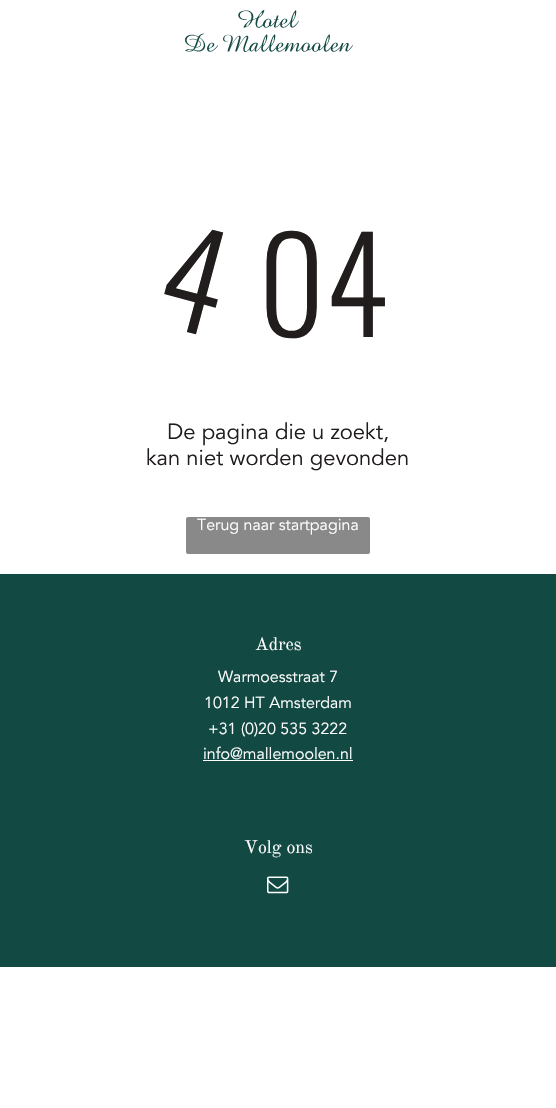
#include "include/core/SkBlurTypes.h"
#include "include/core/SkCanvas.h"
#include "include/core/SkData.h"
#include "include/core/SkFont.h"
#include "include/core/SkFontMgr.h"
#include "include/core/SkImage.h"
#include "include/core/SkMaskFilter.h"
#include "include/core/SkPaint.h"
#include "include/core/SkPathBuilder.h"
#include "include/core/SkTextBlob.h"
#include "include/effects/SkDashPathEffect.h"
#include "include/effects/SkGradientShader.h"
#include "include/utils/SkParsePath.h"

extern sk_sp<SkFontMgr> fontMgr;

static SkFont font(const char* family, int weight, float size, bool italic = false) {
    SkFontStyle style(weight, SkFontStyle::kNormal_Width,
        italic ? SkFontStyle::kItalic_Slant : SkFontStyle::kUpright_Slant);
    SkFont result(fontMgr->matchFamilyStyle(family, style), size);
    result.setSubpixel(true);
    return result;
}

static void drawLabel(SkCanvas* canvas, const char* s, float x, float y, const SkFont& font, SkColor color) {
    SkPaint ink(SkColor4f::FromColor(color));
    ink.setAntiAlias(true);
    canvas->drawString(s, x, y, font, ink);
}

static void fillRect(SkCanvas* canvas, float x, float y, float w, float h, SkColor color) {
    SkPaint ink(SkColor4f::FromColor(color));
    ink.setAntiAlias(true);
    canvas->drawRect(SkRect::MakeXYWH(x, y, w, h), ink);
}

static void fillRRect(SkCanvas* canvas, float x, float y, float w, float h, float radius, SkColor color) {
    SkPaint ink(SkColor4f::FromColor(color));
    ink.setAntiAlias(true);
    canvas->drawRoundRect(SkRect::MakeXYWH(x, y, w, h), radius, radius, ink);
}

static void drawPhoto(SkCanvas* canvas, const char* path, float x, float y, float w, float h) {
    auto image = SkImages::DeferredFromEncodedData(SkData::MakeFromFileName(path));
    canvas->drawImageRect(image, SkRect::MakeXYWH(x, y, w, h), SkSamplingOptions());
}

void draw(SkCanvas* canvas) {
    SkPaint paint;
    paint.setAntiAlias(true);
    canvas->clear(0xFFFFFFFF);
    drawPhoto(canvas, "assets/img1.png", 185, 10, 168, 42);
    SkFont font1 = font("Oswald", 300, 130);
    canvas->save();
    canvas->rotate(15, 150, 322);
    drawLabel(canvas, "4", 150, 322, font1, 0xFF211D1D);
    canvas->restore();
    drawLabel(canvas, "04", 258, 337, font1, 0xFF211D1D);
    SkFont font2 = font("Avenir", 400, 22);
    drawLabel(canvas, "De pagina die u zoekt,", 167, 439, font2, 0xFF211D1D);
    drawLabel(canvas, "kan niet worden gevonden", 146, 465, font2, 0xFF211D1D);
    fillRRect(canvas, 186, 517, 184, 37, 2, 0xFF898989);
    SkFont font3 = font("Avenir", 400, 16);
    drawLabel(canvas, "Terug naar startpagina", 197, 530, font3, 0xFFFFFFFF);
    fillRect(canvas, 0, 574, 556, 393, 0xFF124943);
    SkFont font4 = font("Old Standard TT", 400, 18);
    drawLabel(canvas, "Adres", 255, 650, font4, 0xFFFFFFFF);
    drawLabel(canvas, "Warmoesstraat 7", 218, 682, font3, 0xFFFFFFFF);
    drawLabel(canvas, "1012 HT Amsterdam", 204, 708, font3, 0xFFFFFFFF);
    drawLabel(canvas, "+31 (0)20 535 3222", 208, 734, font3, 0xFFFFFFFF);
    drawLabel(canvas, "info@mallemoolen.nl", 203, 759, font3, 0xFFFFFFFF);
    fillRect(canvas, 203, 760, 150, 1, 0xFFFFFFFF);
    drawLabel(canvas, "Volg ons", 244, 853, font4, 0xFFFFFFFF);
    drawPhoto(canvas, "assets/img2.png", 267, 876, 22, 18);
}
